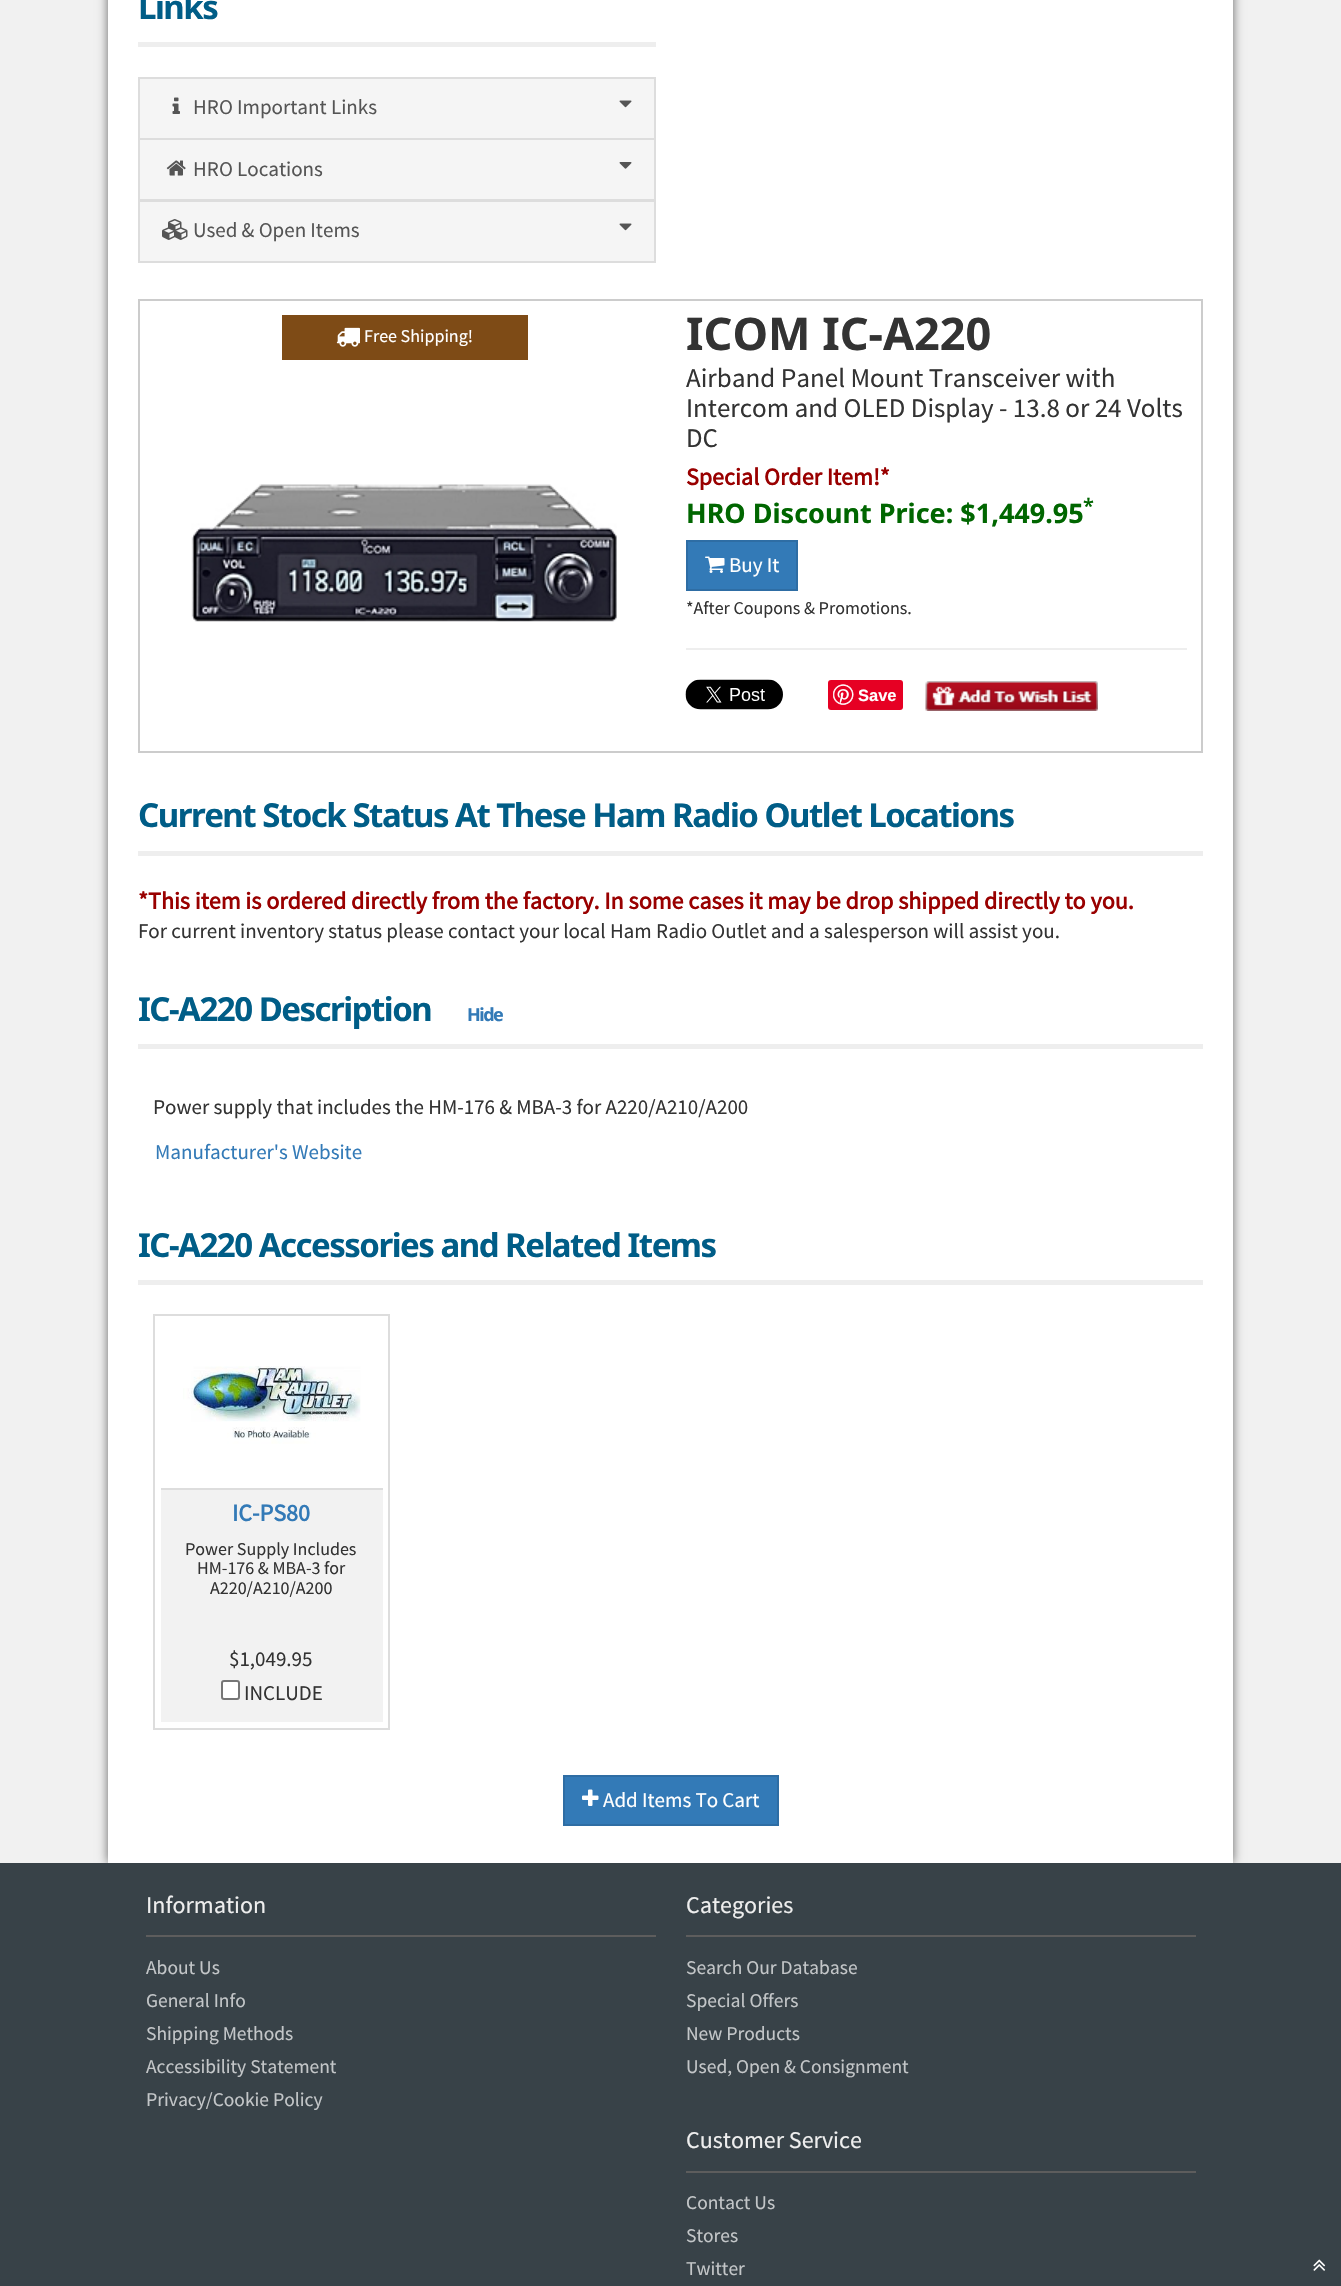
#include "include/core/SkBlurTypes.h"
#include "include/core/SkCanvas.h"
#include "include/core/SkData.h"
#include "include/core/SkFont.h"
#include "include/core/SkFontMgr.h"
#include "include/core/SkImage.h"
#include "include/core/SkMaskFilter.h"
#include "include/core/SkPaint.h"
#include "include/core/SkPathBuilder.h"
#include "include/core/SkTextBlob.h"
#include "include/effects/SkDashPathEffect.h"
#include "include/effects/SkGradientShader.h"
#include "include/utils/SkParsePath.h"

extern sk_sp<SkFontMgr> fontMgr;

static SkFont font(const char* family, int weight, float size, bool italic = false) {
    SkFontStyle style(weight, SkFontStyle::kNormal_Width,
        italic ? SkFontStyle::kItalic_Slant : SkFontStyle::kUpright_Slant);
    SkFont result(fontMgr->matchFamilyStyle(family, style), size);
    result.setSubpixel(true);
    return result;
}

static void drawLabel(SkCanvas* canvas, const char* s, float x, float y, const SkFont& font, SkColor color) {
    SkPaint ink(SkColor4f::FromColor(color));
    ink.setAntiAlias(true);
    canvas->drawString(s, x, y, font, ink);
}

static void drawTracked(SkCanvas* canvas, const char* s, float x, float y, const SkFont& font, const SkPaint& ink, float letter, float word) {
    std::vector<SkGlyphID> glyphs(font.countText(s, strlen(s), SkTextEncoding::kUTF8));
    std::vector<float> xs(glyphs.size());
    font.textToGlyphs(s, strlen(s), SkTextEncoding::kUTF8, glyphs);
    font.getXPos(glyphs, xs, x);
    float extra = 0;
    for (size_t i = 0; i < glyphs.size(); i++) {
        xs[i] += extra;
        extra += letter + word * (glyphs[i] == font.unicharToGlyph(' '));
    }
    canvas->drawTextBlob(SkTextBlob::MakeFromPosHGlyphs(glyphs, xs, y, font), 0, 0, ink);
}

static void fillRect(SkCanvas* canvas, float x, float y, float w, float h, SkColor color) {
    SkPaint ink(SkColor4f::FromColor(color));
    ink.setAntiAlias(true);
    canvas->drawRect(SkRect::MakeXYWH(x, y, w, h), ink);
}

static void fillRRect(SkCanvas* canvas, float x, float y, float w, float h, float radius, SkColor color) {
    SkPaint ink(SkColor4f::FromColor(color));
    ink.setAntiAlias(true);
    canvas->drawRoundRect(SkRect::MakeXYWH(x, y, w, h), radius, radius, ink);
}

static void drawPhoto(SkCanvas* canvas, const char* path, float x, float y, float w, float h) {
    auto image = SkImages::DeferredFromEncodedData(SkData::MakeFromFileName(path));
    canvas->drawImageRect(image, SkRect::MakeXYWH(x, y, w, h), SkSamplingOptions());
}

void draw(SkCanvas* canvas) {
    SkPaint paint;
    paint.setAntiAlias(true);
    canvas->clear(0xFFF1F1F1);
    paint.setColor(0xFF666666);
    paint.setMaskFilter(SkMaskFilter::MakeBlur(kNormal_SkBlurStyle, 5));
    canvas->drawRect(SkRect::MakeXYWH(108, -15, 1125, 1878), paint);
    paint.setMaskFilter(nullptr);
    fillRect(canvas, 108, 0, 1125, 1863, 0xFFFFFFFF);
    fillRect(canvas, 138, 42, 518, 5, 0xFFEEEEEE);
    SkFont font1 = font("Noto Sans", 700, 33);
    paint.setColor(0xFF005D87);
    drawTracked(canvas, "Links", 138, 19, font1, paint, -1.5f, 0);
    paint.setColor(0xFFF5F5F5);
    canvas->drawRect(SkRect::MakeXYWH(139, 78, 516, 61), paint);
    paint.setStroke(true);
    paint.setStrokeWidth(2);
    paint.setColor(0xFFDDDDDD);
    canvas->drawRect(SkRect::MakeXYWH(139, 78, 516, 61), paint);
    drawPhoto(canvas, "assets/img1.png", 172, 97, 8, 17);
    SkFont font2 = font("Source Sans Pro", 400, 21);
    drawLabel(canvas, "HRO Important Links", 193, 114, font2, 0xFF555555);
    drawPhoto(canvas, "assets/img2.png", 619, 100, 13, 8);
    paint.setStroke(false);
    paint.setColor(0xFFF5F5F5);
    canvas->drawRect(SkRect::MakeXYWH(139, 139, 516, 61), paint);
    paint.setStroke(true);
    paint.setColor(0xFFDDDDDD);
    canvas->drawRect(SkRect::MakeXYWH(139, 139, 516, 61), paint);
    drawPhoto(canvas, "assets/img3.png", 166, 160, 20, 16);
    drawLabel(canvas, "HRO Locations", 193, 176, font2, 0xFF555555);
    drawPhoto(canvas, "assets/img4.png", 619, 162, 13, 7);
    paint.setStroke(false);
    paint.setColor(0xFFF5F5F5);
    canvas->drawRect(SkRect::MakeXYWH(139, 201, 516, 61), paint);
    paint.setStroke(true);
    paint.setColor(0xFFDDDDDD);
    canvas->drawRect(SkRect::MakeXYWH(139, 201, 516, 61), paint);
    drawPhoto(canvas, "assets/img5.png", 162, 219, 26, 21);
    drawLabel(canvas, "Used & Open Items", 193, 237, font2, 0xFF555555);
    drawPhoto(canvas, "assets/img2.png", 619, 223, 13, 8);
    paint.setColor(0xFFCCCCCC);
    canvas->drawRect(SkRect::MakeXYWH(139, 300, 1063, 452), paint);
    fillRect(canvas, 282, 315, 246, 45, 0xFF7E4B16);
    drawPhoto(canvas, "assets/img6.png", 336, 327, 24, 20);
    SkFont font3 = font("Source Sans Pro", 400, 18);
    drawLabel(canvas, "Free Shipping!", 364, 342, font3, 0xFFFFFFFF);
    drawPhoto(canvas, "assets/img7.png", 191, 484, 426, 138);
    SkFont font4 = font("Noto Sans", 700, 45);
    drawLabel(canvas, "ICOM IC-A220", 686, 350, font4, 0xFF333333);
    SkFont font5 = font("Source Sans Pro", 400, 27);
    drawLabel(canvas, "Airband Panel Mount Transceiver with", 686, 387, font5, 0xFF333333);
    drawLabel(canvas, "Intercom and OLED Display - 13.8 or 24 Volts", 686, 417, font5, 0xFF333333);
    drawLabel(canvas, "DC", 686, 447, font5, 0xFF333333);
    SkFont font6 = font("Source Sans Pro", 700, 24);
    drawLabel(canvas, "Special Order Item!*", 686, 485, font6, 0xFF990000);
    SkFont font7 = font("Noto Sans", 700, 27);
    drawLabel(canvas, "HRO Discount Price: $1,449.95", 686, 523, font7, 0xFF006600);
    SkFont font8 = font("Noto Sans", 600, 20);
    drawLabel(canvas, "*", 1083, 513, font8, 0xFF006600);
    paint.setStroke(false);
    paint.setColor(0xFF337AB7);
    canvas->drawRect(SkRect::MakeXYWH(687, 541, 110, 49), paint);
    paint.setStroke(true);
    paint.setColor(0xFF2E6DA4);
    canvas->drawRect(SkRect::MakeXYWH(687, 541, 110, 49), paint);
    drawPhoto(canvas, "assets/img8.png", 705, 556, 20, 17);
    drawLabel(canvas, "Buy It", 729, 572, font2, 0xFFFFFFFF);
    drawLabel(canvas, "*After Coupons & Promotions.", 686, 614, font3, 0xFF333333);
    fillRect(canvas, 686, 648, 501, 2, 0xFFEEEEEE);
    drawPhoto(canvas, "assets/img9.png", 685, 679, 98, 31);
    fillRRect(canvas, 828, 680, 75, 30, 3, 0xFFE60023);
    drawPhoto(canvas, "assets/img10.png", 833, 684, 21, 21);
    SkFont font9 = font("Liberation Sans", 700, 16.5f);
    drawLabel(canvas, "Save", 858, 701, font9, 0xFFFFFFFF);
    drawPhoto(canvas, "assets/img11.png", 925, 681, 173, 30);
    fillRect(canvas, 138, 851, 1065, 5, 0xFFEEEEEE);
    paint.setStroke(false);
    paint.setColor(0xFF005D87);
    drawTracked(canvas, "Current Stock Status At These Ham Radio Outlet Locations", 138, 827, font1, paint, -1.5f, 0);
    drawLabel(canvas, "*This item is ordered directly from the factory. In some cases it may be drop shipped directly to you.", 138, 909, font6, 0xFF990000);
    drawLabel(canvas, "For current inventory status please contact your local Ham Radio Outlet and a salesperson will assist you.", 138, 938, font2, 0xFF333333);
    fillRect(canvas, 138, 1044, 1065, 5, 0xFFEEEEEE);
    drawTracked(canvas, "IC-A220 Description", 138, 1021, font1, paint, -1.5f, 0);
    SkFont font10 = font("Noto Sans", 700, 18);
    paint.setColor(0xFF337AB7);
    drawTracked(canvas, "Hide", 467, 1021, font10, paint, -1.5f, 0);
    drawLabel(canvas, "Power supply that includes the HM-176 & MBA-3 for A220/A210/A200", 153, 1114, font2, 0xFF333333);
    drawLabel(canvas, "Manufacturer's Website", 155, 1159, font2, 0xFF337AB7);
    fillRect(canvas, 138, 1280, 1065, 5, 0xFFEEEEEE);
    paint.setColor(0xFF005D87);
    drawTracked(canvas, "IC-A220 Accessories and Related Items", 138, 1257, font1, paint, -1.5f, 0);
    paint.setStroke(true);
    paint.setColor(0xFFDDDDDD);
    canvas->drawRect(SkRect::MakeXYWH(154, 1315, 235, 414), paint);
    drawPhoto(canvas, "assets/img12.png", 183, 1366, 178, 78);
    fillRect(canvas, 161, 1490, 222, 232, 0xFFF2F2F2);
    fillRect(canvas, 161, 1488, 222, 2, 0xFFDDDDDD);
    drawLabel(canvas, "IC-PS80", 232, 1521, font6, 0xFF337AB7);
    drawLabel(canvas, "Power Supply Includes", 185, 1555, font3, 0xFF333333);
    drawLabel(canvas, "HM-176 & MBA-3 for", 197, 1574, font3, 0xFF333333);
    drawLabel(canvas, "A220/A210/A200", 210, 1594, font3, 0xFF333333);
    drawLabel(canvas, "$1,049.95", 229, 1666, font2, 0xFF333333);
    paint.setStroke(false);
    paint.setColor(0xFFFFFFFF);
    canvas->drawRoundRect(SkRect::MakeXYWH(222, 1681, 17, 18), 2, 2, paint);
    paint.setStroke(true);
    paint.setColor(0xFF767676);
    canvas->drawRoundRect(SkRect::MakeXYWH(222, 1681, 17, 18), 2, 2, paint);
    drawLabel(canvas, "INCLUDE", 244, 1700, font2, 0xFF333333);
    paint.setStroke(false);
    paint.setColor(0xFF337AB7);
    canvas->drawRect(SkRect::MakeXYWH(564, 1776, 214, 49), paint);
    paint.setStroke(true);
    paint.setColor(0xFF2E6DA4);
    canvas->drawRect(SkRect::MakeXYWH(564, 1776, 214, 49), paint);
    drawPhoto(canvas, "assets/img13.png", 582, 1789, 17, 17);
    drawLabel(canvas, "Add Items To Cart", 603, 1807, font2, 0xFFFFFFFF);
    fillRect(canvas, 0, 1863, 1341, 423, 0xFF384248);
    fillRect(canvas, 146, 1935, 510, 2, 0xFF5D5D5D);
    SkFont font11 = font("Source Sans Pro", 400, 24);
    drawLabel(canvas, "Information", 146, 1913, font11, 0xFFEEEEEE);
    SkFont font12 = font("Source Sans Pro", 400, 19.5f);
    drawLabel(canvas, "About Us", 146, 1974, font12, 0xFFC3C6C8);
    drawLabel(canvas, "General Info", 146, 2007, font12, 0xFFC3C6C8);
    drawLabel(canvas, "Shipping Methods", 146, 2040, font12, 0xFFC3C6C8);
    drawLabel(canvas, "Accessibility Statement", 146, 2073, font12, 0xFFC3C6C8);
    drawLabel(canvas, "Privacy/Cookie Policy", 146, 2106, font12, 0xFFC3C6C8);
    fillRect(canvas, 686, 1935, 510, 2, 0xFF5D5D5D);
    drawLabel(canvas, "Categories", 686, 1913, font11, 0xFFEEEEEE);
    drawLabel(canvas, "Search Our Database", 686, 1974, font12, 0xFFC3C6C8);
    drawLabel(canvas, "Special Offers", 686, 2007, font12, 0xFFC3C6C8);
    drawLabel(canvas, "New Products", 686, 2040, font12, 0xFFC3C6C8);
    drawLabel(canvas, "Used, Open & Consignment", 686, 2073, font12, 0xFFC3C6C8);
    fillRect(canvas, 686, 2171, 510, 2, 0xFF5D5D5D);
    drawLabel(canvas, "Customer Service", 686, 2148, font11, 0xFFEEEEEE);
    drawLabel(canvas, "Contact Us", 686, 2209, font12, 0xFFC3C6C8);
    drawLabel(canvas, "Stores", 686, 2242, font12, 0xFFC3C6C8);
    drawLabel(canvas, "Twitter", 686, 2275, font12, 0xFFC3C6C8);
    drawPhoto(canvas, "assets/img14.png", 1313, 2259, 13, 12);
}
